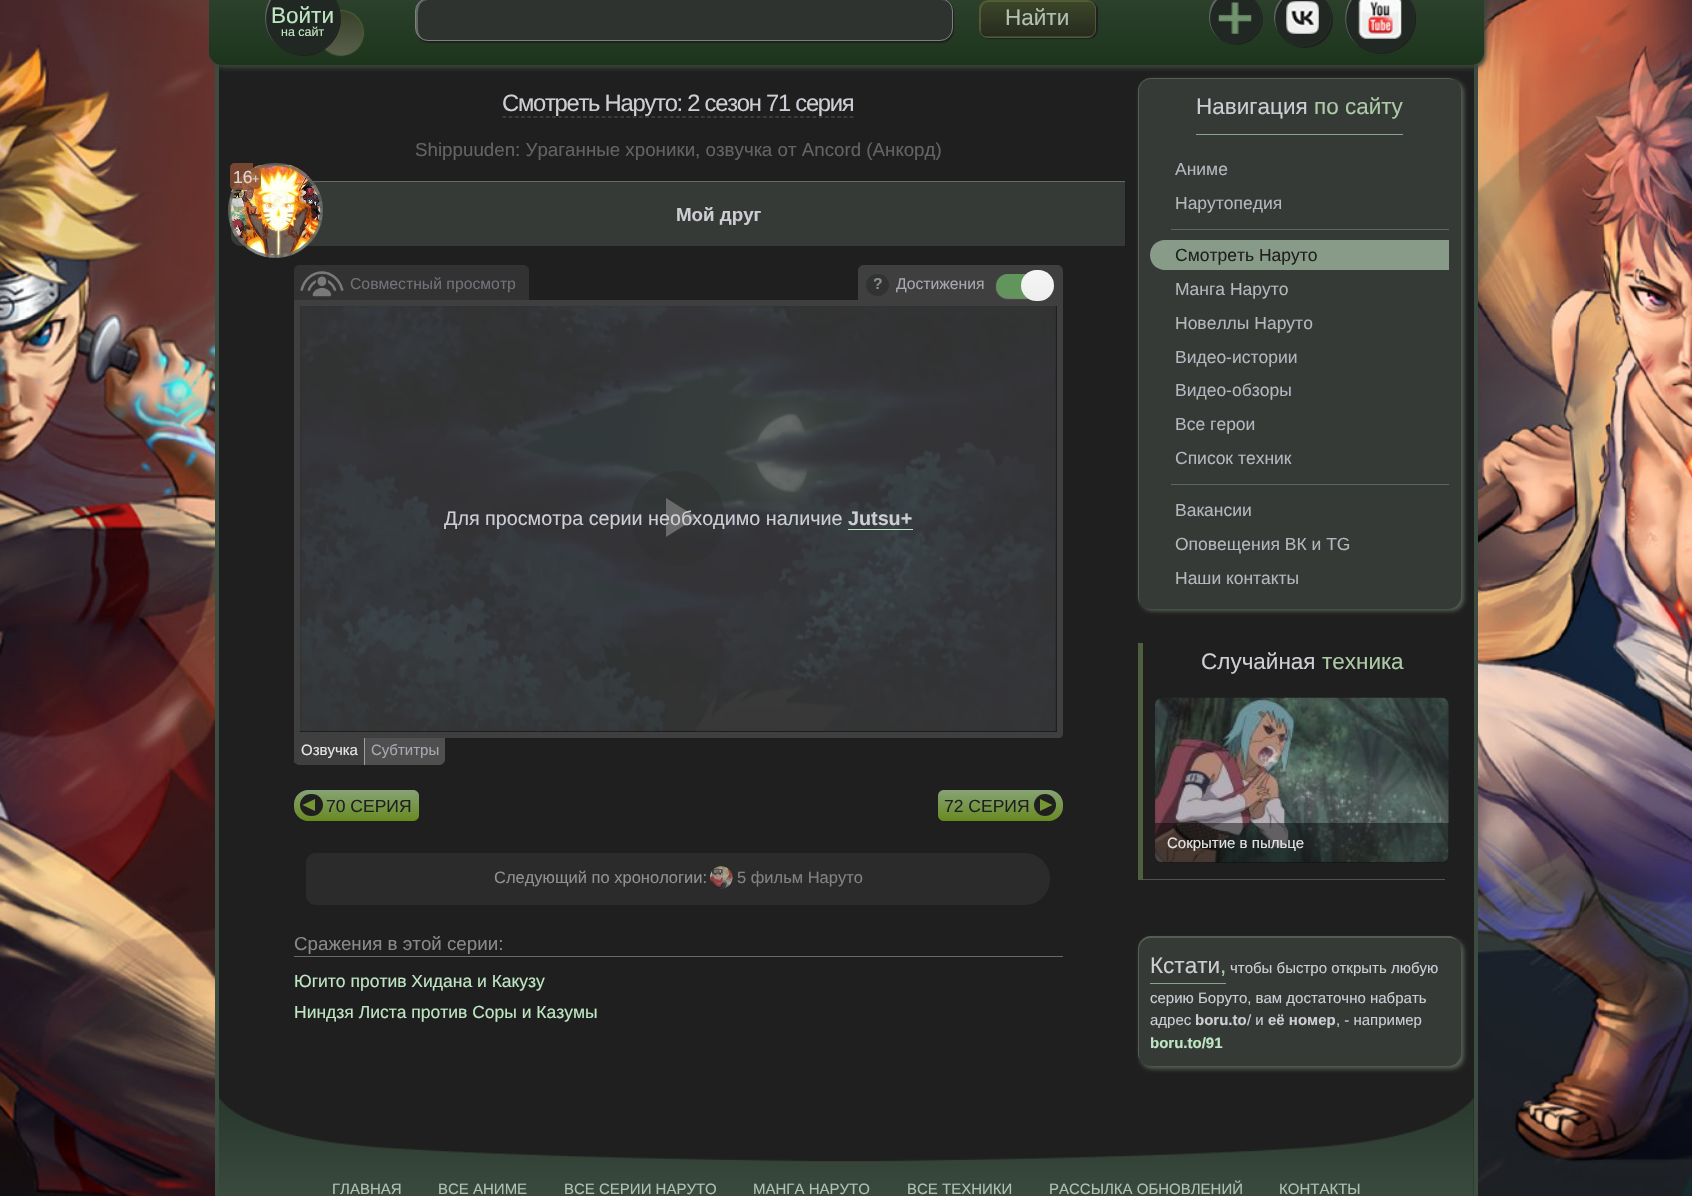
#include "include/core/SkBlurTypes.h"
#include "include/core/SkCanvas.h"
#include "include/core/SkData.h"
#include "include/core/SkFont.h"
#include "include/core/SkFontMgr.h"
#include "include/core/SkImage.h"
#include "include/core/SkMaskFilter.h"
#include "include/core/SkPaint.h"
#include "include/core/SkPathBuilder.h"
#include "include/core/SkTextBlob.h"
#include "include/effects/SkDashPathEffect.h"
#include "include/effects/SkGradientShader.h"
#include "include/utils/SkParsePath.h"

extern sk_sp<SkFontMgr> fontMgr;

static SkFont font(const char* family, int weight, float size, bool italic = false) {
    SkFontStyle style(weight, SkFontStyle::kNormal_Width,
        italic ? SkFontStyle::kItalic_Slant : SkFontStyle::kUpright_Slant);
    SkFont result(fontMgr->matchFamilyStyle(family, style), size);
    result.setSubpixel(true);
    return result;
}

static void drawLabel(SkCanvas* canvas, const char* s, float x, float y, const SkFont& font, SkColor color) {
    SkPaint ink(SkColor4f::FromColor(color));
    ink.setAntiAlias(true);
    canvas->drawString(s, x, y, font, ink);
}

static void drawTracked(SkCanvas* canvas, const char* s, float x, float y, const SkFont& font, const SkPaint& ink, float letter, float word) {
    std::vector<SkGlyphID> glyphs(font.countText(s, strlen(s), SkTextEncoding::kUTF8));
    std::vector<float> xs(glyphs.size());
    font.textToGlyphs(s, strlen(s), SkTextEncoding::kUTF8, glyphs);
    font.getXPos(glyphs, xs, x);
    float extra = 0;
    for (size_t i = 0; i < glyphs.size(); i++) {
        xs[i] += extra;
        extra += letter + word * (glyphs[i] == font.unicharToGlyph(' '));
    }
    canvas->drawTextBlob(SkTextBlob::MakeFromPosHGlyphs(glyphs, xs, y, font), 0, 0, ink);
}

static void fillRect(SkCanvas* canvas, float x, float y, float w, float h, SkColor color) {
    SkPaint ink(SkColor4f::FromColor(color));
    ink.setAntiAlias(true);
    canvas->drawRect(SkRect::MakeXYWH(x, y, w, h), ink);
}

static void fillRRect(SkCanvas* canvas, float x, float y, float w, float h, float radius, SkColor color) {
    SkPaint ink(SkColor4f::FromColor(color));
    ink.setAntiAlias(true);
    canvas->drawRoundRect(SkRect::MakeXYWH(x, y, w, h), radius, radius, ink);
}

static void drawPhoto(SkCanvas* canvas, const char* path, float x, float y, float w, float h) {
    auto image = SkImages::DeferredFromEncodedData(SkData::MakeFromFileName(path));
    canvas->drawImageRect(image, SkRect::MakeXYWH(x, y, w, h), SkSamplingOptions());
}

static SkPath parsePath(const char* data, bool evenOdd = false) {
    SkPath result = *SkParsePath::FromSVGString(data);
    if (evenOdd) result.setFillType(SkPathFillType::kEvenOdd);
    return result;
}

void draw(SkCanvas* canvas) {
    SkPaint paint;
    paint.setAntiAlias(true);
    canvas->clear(0xFFFFFFFF);
    drawPhoto(canvas, "assets/img1.png", 0, 0, 1692, 1196);
    fillRect(canvas, 219, 65, 1255, 1131, 0xFF1F1F1F);
    fillRect(canvas, 1474, 65, 4, 1131, 0xFF3C4C40);
    fillRect(canvas, 215, 65, 4, 1131, 0xFF3C4C40);
    paint.setColor(0xFF394439);
    paint.setMaskFilter(SkMaskFilter::MakeBlur(kNormal_SkBlurStyle, 2));
    canvas->drawRoundRect(SkRect::MakeXYWH(211, -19, 1275, 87), 13, 13, paint);
    paint.setMaskFilter(nullptr);
    {
        const SkColor colors[] = {0xFF334633, 0xFF1C341C};
        const float stops[] = {0, 1};
        const SkPoint ends[] = {{846, -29}, {846, 65}};
        paint.setShader(SkGradientShader::MakeLinear(ends, colors, stops, 2, SkTileMode::kClamp));
        paint.setAlpha(255);
    }
    canvas->drawRoundRect(SkRect::MakeXYWH(209, -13, 1275, 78), 13, 13, paint);
    paint.setShader(nullptr);
    paint.setColor(0xFF4F5E33);
    paint.setMaskFilter(SkMaskFilter::MakeBlur(kNormal_SkBlurStyle, 0.5f));
    canvas->drawRoundRect(SkRect::MakeXYWH(318, 10, 46, 46), 23, 23, paint);
    paint.setMaskFilter(nullptr);
    {
        const SkColor colors[] = {0xFF394129, 0xFF585F4B};
        const float stops[] = {0, 1};
        const SkPoint ends[] = {{341, 11}, {341, 55}};
        paint.setShader(SkGradientShader::MakeLinear(ends, colors, stops, 2, SkTileMode::kClamp));
        paint.setAlpha(255);
    }
    canvas->drawCircle(341, 33, 22, paint);
    paint.setShader(nullptr);
    paint.setColor(0xFF1F1F1F);
    canvas->drawPath(parsePath("M276 45C291 59 315 60 330 45C345 30 344 6 330-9C343 6 343 30 329 44C315 58 291 58 276 45Z"), paint);
    paint.setColor(0xFF212722);
    canvas->drawCircle(302.5f, 17.5f, 37.5f, paint);
    paint.setColor(0xFF606661);
    canvas->drawPath(parsePath("M304-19C315-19 325-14 332-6C318-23 292-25 276-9C260 7 262 33 279 47C253 24 269-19 304-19Z"), paint);
    SkFont font1 = font("Liberation Sans", 400, 22.5f);
    drawLabel(canvas, "Войти", 271, 23, font1, 0xFFBEE6C3);
    SkFont font2 = font("Liberation Sans", 400, 12.5f);
    drawLabel(canvas, "на сайт", 281, 36, font2, 0xFFBEE6C3);
    paint.setColor(0xFF1F1F1F);
    paint.setMaskFilter(SkMaskFilter::MakeBlur(kNormal_SkBlurStyle, 0.5f));
    canvas->drawRoundRect(SkRect::MakeXYWH(416, -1, 538, 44), 13, 13, paint);
    paint.setMaskFilter(nullptr);
    fillRRect(canvas, 415, -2, 538, 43, 13, 0xFF2E332F);
    paint.setColor(0xFF606661);
    canvas->drawPath(parsePath("M429 0H941C944 0 946 1 948 3C946 1 943-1 940-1H427C421-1 416 4 416 10V29C416 34 419 38 423 39C417 35 418 27 418 20C418 12 417 0 429 0Z"), paint);
    paint.setStroke(true);
    paint.setStrokeWidth(1);
    paint.setColor(0xFF7C817E);
    canvas->drawRoundRect(SkRect::MakeXYWH(415.5f, -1.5f, 537, 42), 12.5f, 12.5f, paint);
    paint.setStroke(false);
    paint.setColor(0xFF1F1F1F);
    paint.setMaskFilter(SkMaskFilter::MakeBlur(kNormal_SkBlurStyle, 0.5f));
    canvas->drawRoundRect(SkRect::MakeXYWH(980, 1, 118, 38), 9, 9, paint);
    paint.setMaskFilter(nullptr);
    canvas->save();
    canvas->clipPath(parsePath("M988 0H1087C1092 0 1096 4 1096 9V29C1096 34 1092 38 1087 38H988C983 38 979 34 979 29V9C979 4 983 0 988 0Z"), true);
    {
        const SkColor colors[] = {0xFF3D4629, 0xFF272B1E};
        const float stops[] = {0, 1};
        const SkPoint ends[] = {{1038, 1.2f}, {1038, 36}};
        paint.setShader(SkGradientShader::MakeLinear(ends, colors, stops, 2, SkTileMode::kClamp));
        paint.setAlpha(255);
    }
    canvas->drawRect(SkRect::MakeXYWH(979, 1, 117, 35), paint);
    {
        const SkColor colors[] = {0xFF3D4629, 0xFF272B1E};
        const float stops[] = {0, 1};
        const SkPoint ends[] = {{1038, 36}, {1038, 71}};
        paint.setShader(SkGradientShader::MakeLinear(ends, colors, stops, 2, SkTileMode::kClamp));
        paint.setAlpha(255);
    }
    canvas->drawRect(SkRect::MakeXYWH(979, 36, 117, 2), paint);
    canvas->restore();
    paint.setShader(nullptr);
    paint.setColor(0xFF536038);
    canvas->drawPath(parsePath("M989 2H1089L1092 3C1091 2 1089 1 1087 1H988C984 1 980 5 980 9V28C980 30 981 32 982 33C980 29 981 24 981 20C981 14 979 2 989 2Z"), paint);
    paint.setStroke(true);
    paint.setColor(0xFF4E5B33);
    canvas->drawRoundRect(SkRect::MakeXYWH(979.5f, 0.5f, 116, 37), 8.5f, 8.5f, paint);
    drawLabel(canvas, "Найти", 1005, 25, font1, 0xFFB0C0B2);
    paint.setStroke(false);
    paint.setColor(0xFF1F1F1F);
    canvas->drawPath(parsePath("M1216 36C1226 47 1245 48 1255 37C1266 27 1265 9 1254-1C1264 9 1264 26 1254 36C1243 46 1226 46 1216 36Z"), paint);
    fillRRect(canvas, 1209, -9, 52, 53, 26, 0xFF212722);
    drawPhoto(canvas, "assets/img2.png", 1218, 2, 34, 32);
    paint.setColor(0xFF606661);
    canvas->drawPath(parsePath("M1236-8C1243-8 1249-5 1254-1C1243-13 1223-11 1213 2C1206 14 1208 31 1220 39C1201 24 1211-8 1236-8Z"), paint);
    paint.setColor(0xFF1F1F1F);
    canvas->drawPath(parsePath("M1281 36C1291 50 1312 52 1325 40C1337 27 1335 6 1321-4C1334 6 1335 26 1323 38C1311 50 1291 49 1281 36Z"), paint);
    paint.setColor(0xFF212722);
    canvas->drawCircle(1302.5f, 17.5f, 28.5f, paint);
    drawPhoto(canvas, "assets/img3.png", 1286, 1, 33, 33);
    paint.setColor(0xFF606661);
    canvas->drawPath(parsePath("M1304-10C1310-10 1316-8 1320-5C1295-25 1261 6 1279 33C1268 14 1282-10 1304-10Z"), paint);
    paint.setColor(0xFF1F1F1F);
    canvas->drawPath(parsePath("M1351 38C1362 54 1384 59 1401 48C1417 37 1421 15 1410-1C1419 15 1415 36 1400 47C1384 57 1362 53 1351 38Z"), paint);
    paint.setColor(0xFF212722);
    canvas->drawCircle(1380, 18, 35, paint);
    drawPhoto(canvas, "assets/img4.png", 1358, 0, 44, 39);
    paint.setColor(0xFF606661);
    canvas->drawPath(parsePath("M1381-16C1388-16 1394-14 1400-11C1384-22 1362-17 1351-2C1341 14 1344 35 1359 46C1334 26 1348-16 1381-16Z"), paint);
    SkFont font3 = font("Liberation Sans", 400, 23.75f);
    paint.setColor(0xFFCDCDD3);
    drawTracked(canvas, "Смотреть Наруто: 2 сезон 71 серия", 502, 111, font3, paint, -1.25f, 0);
    paint.setStroke(true);
    paint.setStrokeWidth(1.2f);
    paint.setColor(0xFF575757);
    paint.setPathEffect(SkDashPathEffect::Make({{3.75f, 2.45f}}, 0));
    canvas->drawPath(parsePath("M502.5 117H854"), paint);
    paint.setPathEffect(nullptr);
    SkFont font4 = font("Liberation Sans", 400, 18.75f);
    drawLabel(canvas, "Shippuuden: Ураганные хроники, озвучка от Ancord (Анкорд)", 415, 156, font4, 0xFF636363);
    paint.setStroke(false);
    paint.setColor(0xFF363A37);
    canvas->drawPath(parsePath("M231 181H1125V246H241C235.5 246 231 241.5 231 236Z"), paint);
    fillRect(canvas, 231, 181, 44, 29, 0xFF1F1F1F);
    fillRect(canvas, 312, 181, 813, 1, 0xFF666B66);
    drawPhoto(canvas, "assets/img5.png", 230, 165, 93, 93);
    paint.setStroke(true);
    paint.setStrokeWidth(3);
    paint.setColor(0xCC666B66);
    canvas->drawCircle(275.5f, 210.5f, 46, paint);
    paint.setStroke(false);
    paint.setColor(0xCC8A5037);
    canvas->drawPath(parsePath("M235 163H253V190H235C232 190 230 188 230 185V168C230 165 232 163 235 163Z"), paint);
    SkFont font5 = font("Liberation Sans", 400, 17.5f);
    drawLabel(canvas, "16", 233, 183, font5, 0xFFE0D6D3);
    canvas->drawPath(parsePath("M253 168H257C259 168 261 170 261 172V185C261 187 259 189 257 189H253Z"), paint);
    drawLabel(canvas, "+", 252, 183, font2, 0xFFE0D6D3);
    SkFont font6 = font("Liberation Sans", 700, 18.75f);
    drawLabel(canvas, "Мой друг", 676, 221, font6, 0xFFCDCDD3);
    paint.setColor(0xFF323232);
    canvas->drawPath(parsePath("M300 265H523C526.5 265 529 267.5 529 271V300H294V271C294 267.5 296.5 265 300 265Z"), paint);
    drawPhoto(canvas, "assets/img6.png", 300, 271, 44, 26);
    SkFont font7 = font("Liberation Sans", 400, 15.75f);
    drawLabel(canvas, "Совместный просмотр", 350, 289, font7, 0xFF717177);
    paint.setColor(0xFF3F3F3F);
    canvas->drawPath(parsePath("M864 265H1057C1060.5 265 1063 267.5 1063 271V300H858V271C858 267.5 860.5 265 864 265Z"), paint);
    fillRRect(canvas, 866, 274, 23, 22, 11, 0xFF313331);
    SkFont font8 = font("Liberation Sans", 700, 15.75f);
    drawLabel(canvas, "?", 873, 289, font8, 0xFF89898F);
    drawLabel(canvas, "Достижения", 896, 289, font7, 0xFFA8A8B1);
    paint.setStroke(true);
    paint.setStrokeWidth(6);
    canvas->drawPath(parsePath("M297 303H1060V734C1060 734.5 1059.5 735 1059 735H297Z"), paint);
    paint.setStroke(false);
    paint.setColor(0xB39B9B9B);
    paint.setMaskFilter(SkMaskFilter::MakeBlur(kNormal_SkBlurStyle, 0.5f));
    canvas->drawRoundRect(SkRect::MakeXYWH(996, 275, 48, 24), 12, 12, paint);
    paint.setMaskFilter(nullptr);
    fillRRect(canvas, 996, 274, 48, 24, 12, 0xFF666666);
    {
        const SkColor colors[] = {0x12000000, 0x1AFFFFFF};
        const float stops[] = {0, 1};
        const SkPoint ends[] = {{1020, 274}, {1020, 298}};
        paint.setShader(SkGradientShader::MakeLinear(ends, colors, stops, 2, SkTileMode::kClamp));
        paint.setAlpha(255);
    }
    canvas->drawRoundRect(SkRect::MakeXYWH(996, 274, 48, 24), 12, 12, paint);
    paint.setShader(nullptr);
    paint.setColor(0xFF62955B);
    canvas->drawPath(parsePath("M1008 274C995 274 992 292 1003 297C1008 299 1026 298 1032 298C1048 297 1048 274 1032 274Z"), paint);
    {
        const SkColor colors[] = {0xFFF5F5F5, 0xFFEEEEEE};
        const float stops[] = {0.1f, 1};
        const SkPoint ends[] = {{1038, 270}, {1038, 301}};
        paint.setShader(SkGradientShader::MakeLinear(ends, colors, stops, 2, SkTileMode::kClamp));
        paint.setAlpha(255);
    }
    canvas->drawRoundRect(SkRect::MakeXYWH(1021, 270, 33, 31), 15.5f, 15.5f, paint);
    fillRect(canvas, 300, 306, 756, 425, 0xFF000000);
    drawPhoto(canvas, "assets/img7.png", 300, 306, 755, 426);
    fillRRect(canvas, 631, 471, 94, 95, 47, 0x80000000);
    paint.setShader(nullptr);
    paint.setColor(0xFFEEECEF);
    canvas->drawPath(parsePath("M666 498V537L697 517.5Z"), paint);
    fillRect(canvas, 300, 306, 756, 425, 0xBF3F3F3F);
    SkFont font9 = font("Liberation Sans", 400, 19.75f);
    drawLabel(canvas, "Для просмотра серии необходимо наличие", 444, 525, font9, 0xFFCDCDD3);
    SkFont font10 = font("Liberation Sans", 700, 19.75f);
    drawLabel(canvas, "Jutsu+", 848, 525, font10, 0xFFCDCDD3);
    fillRect(canvas, 848, 529, 65, 1, 0xFFBEE6C3);
    paint.setColor(0xFF3F3F3F);
    canvas->drawPath(parsePath("M294 738H364V765H300C296.5 765 294 762.5 294 759Z"), paint);
    fillRect(canvas, 294, 760, 1, 3, 0xFF3F3F3F);
    SkFont font11 = font("Liberation Sans", 400, 15);
    drawLabel(canvas, "Озвучка", 301, 755, font11, 0xFFE6E6EA);
    paint.setColor(0xFF4F4F4F);
    canvas->drawPath(parsePath("M364 738H445V759C445 762.5 442.5 765 439 765H364Z"), paint);
    fillRect(canvas, 364, 738, 1, 27, 0xFF9F9F9F);
    drawLabel(canvas, "Субтитры", 371, 755, font11, 0xFFA8A8B1);
    {
        const SkColor colors[] = {0xFF87A376, 0xFF688A20};
        const float stops[] = {0, 1};
        const SkPoint ends[] = {{356, 790}, {356, 821}};
        paint.setShader(SkGradientShader::MakeLinear(ends, colors, stops, 2, SkTileMode::kClamp));
        paint.setAlpha(255);
    }
    canvas->drawPath(parsePath("M308 790H413C416.5 790 419 792.5 419 796V815C419 818.5 416.5 821 413 821H308C300.5 821 294 814.5 294 807V804C294 796.5 300.5 790 308 790Z"), paint);
    fillRRect(canvas, 300, 794, 23, 22, 11, 0xFF1F1F1F);
    paint.setShader(nullptr);
    paint.setColor(0xFF769731);
    canvas->drawPath(parsePath("M315 799V811L302.5 805Z"), paint);
    drawLabel(canvas, "70 СЕРИЯ", 326, 812, font5, 0xFF1F1F1F);
    {
        const SkColor colors[] = {0xFF87A376, 0xFF688A20};
        const float stops[] = {0, 1};
        const SkPoint ends[] = {{1000, 790}, {1000, 821}};
        paint.setShader(SkGradientShader::MakeLinear(ends, colors, stops, 2, SkTileMode::kClamp));
        paint.setAlpha(255);
    }
    canvas->drawPath(parsePath("M944 790H1049C1056.5 790 1063 796.5 1063 804V807C1063 814.5 1056.5 821 1049 821H944C940.5 821 938 818.5 938 815V796C938 792.5 940.5 790 944 790Z"), paint);
    drawLabel(canvas, "72 СЕРИЯ", 944, 812, font5, 0xFF1F1F1F);
    paint.setShader(nullptr);
    paint.setColor(0xFF1F1F1F);
    canvas->drawCircle(1045, 805, 11, paint);
    paint.setColor(0xFF769731);
    canvas->drawPath(parsePath("M1040 811V799L1052.5 805Z"), paint);
    paint.setColor(0xFF2C2B2B);
    canvas->drawPath(parsePath("M316 853H1024C1038.5 853 1050 864.5 1050 879C1050 893.5 1038.5 905 1024 905H316C310.5 905 306 900.5 306 895V863C306 857.5 310.5 853 316 853Z"), paint);
    SkFont font12 = font("Liberation Sans", 400, 16.5f);
    drawLabel(canvas, "Следующий по хронологии:", 494, 883, font12, 0xFF909094);
    drawPhoto(canvas, "assets/img8.png", 710, 866, 23, 23);
    drawLabel(canvas, "5 фильм Наруто", 737, 883, font12, 0xFF828282);
    fillRect(canvas, 294, 956, 769, 1, 0xFF666B66);
    drawLabel(canvas, "Сражения в этой серии:", 294, 950, font4, 0xFF898989);
    drawLabel(canvas, "Югито против Хидана и Какузу", 294, 987, font5, 0xFFBEE6C3);
    drawLabel(canvas, "Ниндзя Листа против Соры и Казумы", 294, 1018, font5, 0xFFBEE6C3);
    paint.setColor(0xFF535F53);
    paint.setMaskFilter(SkMaskFilter::MakeBlur(kNormal_SkBlurStyle, 2));
    canvas->drawRoundRect(SkRect::MakeXYWH(1140, 80, 324, 531), 13, 13, paint);
    paint.setMaskFilter(nullptr);
    fillRRect(canvas, 1138, 78, 323, 531, 13, 0xFF363A37);
    canvas->drawPath(parsePath("M1151 79H1450L1455 80C1453 79 1450 78 1448 78H1151C1144 78 1138 84 1138 91V596C1138 599 1139 601 1140 604C1140 602 1139 600 1139 598V91C1139 84 1144 79 1151 79Z"), paint);
    fillRect(canvas, 1196, 134, 207, 1, 0xFF8CA38F);
    drawLabel(canvas, "Навигация", 1196, 114, font1, 0xFFCDCDD3);
    drawLabel(canvas, "по сайту", 1314, 114, font1, 0xFFACCAA6);
    drawLabel(canvas, "Аниме", 1175, 175, font5, 0xFFB6B6BD);
    drawLabel(canvas, "Нарутопедия", 1175, 209, font5, 0xFFB6B6BD);
    fillRect(canvas, 1171, 229, 278, 1, 0xFF5C675E);
    paint.setColor(0xFF889B88);
    canvas->drawPath(parsePath("M1165 240H1449V270H1165C1156.5 270 1150 263.5 1150 255C1150 246.5 1156.5 240 1165 240Z"), paint);
    drawLabel(canvas, "Смотреть Наруто", 1175, 261, font5, 0xFF1F1F1F);
    drawLabel(canvas, "Манга Наруто", 1175, 295, font5, 0xFFB6B6BD);
    drawLabel(canvas, "Новеллы Наруто", 1175, 329, font5, 0xFFB6B6BD);
    drawLabel(canvas, "Видео-истории", 1175, 363, font5, 0xFFB6B6BD);
    drawLabel(canvas, "Видео-обзоры", 1175, 396, font5, 0xFFB6B6BD);
    drawLabel(canvas, "Все герои", 1175, 430, font5, 0xFFB6B6BD);
    drawLabel(canvas, "Список техник", 1175, 464, font5, 0xFFB6B6BD);
    fillRect(canvas, 1171, 484, 278, 1, 0xFF5C675E);
    drawLabel(canvas, "Вакансии", 1175, 516, font5, 0xFFB6B6BD);
    drawLabel(canvas, "Оповещения ВК и TG", 1175, 550, font5, 0xFFB6B6BD);
    drawLabel(canvas, "Наши контакты", 1175, 584, font5, 0xFFB6B6BD);
    fillRect(canvas, 1138, 643, 5, 237, 0xFF4F6040);
    drawLabel(canvas, "Случайная", 1201, 669, font1, 0xFFCDCDD3);
    drawLabel(canvas, "техника", 1322, 669, font1, 0xFFACCAA6);
    drawPhoto(canvas, "assets/img9.png", 1155, 697, 294, 166);
    paint.setColor(0x73000000);
    canvas->drawPath(parsePath("M1155 823H1449V855C1449 859.5 1445.5 863 1441 863H1163C1158.5 863 1155 859.5 1155 855Z"), paint);
    drawLabel(canvas, "Сокрытие в пыльце", 1167, 848, font11, 0xFFE2E2E2);
    fillRect(canvas, 1143, 879, 302, 1, 0xFF535353);
    paint.setColor(0xFF535F53);
    paint.setMaskFilter(SkMaskFilter::MakeBlur(kNormal_SkBlurStyle, 2));
    canvas->drawRoundRect(SkRect::MakeXYWH(1140, 939, 324, 130), 13, 13, paint);
    paint.setMaskFilter(nullptr);
    fillRRect(canvas, 1138, 936, 323, 130, 13, 0xFF363A37);
    canvas->drawPath(parsePath("M1151 938H1450C1453 938 1456 939 1458 941C1456 938 1452 936 1448 936H1151C1144 936 1138 942 1138 949V1053C1138 1055 1139 1058 1140 1059L1139 1055V950C1139 943 1144 938 1151 938Z"), paint);
    fillRect(canvas, 1150, 983, 76, 1, 0xFF8CA38F);
    drawLabel(canvas, "Кстати", 1150, 973, font1, 0xFFCDCDD3);
    drawLabel(canvas, ",", 1220, 973, font1, 0xFFACCAA6);
    drawLabel(canvas, "чтобы быстро открыть любую", 1230, 973, font11, 0xFFCDCDD3);
    drawLabel(canvas, "серию Боруто, вам достаточно набрать", 1150, 1003, font11, 0xFFCDCDD3);
    drawLabel(canvas, "адрес", 1150, 1025, font11, 0xFFCDCDD3);
    SkFont font13 = font("Liberation Sans", 700, 15);
    drawLabel(canvas, "boru.to", 1195, 1025, font13, 0xFFCDCDD3);
    drawLabel(canvas, "/ и", 1247, 1025, font11, 0xFFCDCDD3);
    drawLabel(canvas, "её номер", 1268, 1025, font13, 0xFFCDCDD3);
    drawLabel(canvas, ", - например", 1336, 1025, font11, 0xFFCDCDD3);
    drawLabel(canvas, "boru.to/91", 1150, 1048, font13, 0xFFBEE6C3);
    drawPhoto(canvas, "assets/img10.png", 219, 1098, 1255, 98);
    drawLabel(canvas, "ГЛАВНАЯ", 332, 1194, font11, 0xFFB0C0B2);
    drawLabel(canvas, "ВСЕ АНИМЕ", 438, 1194, font11, 0xFFB0C0B2);
    drawLabel(canvas, "ВСЕ СЕРИИ НАРУТО", 564, 1194, font11, 0xFFB0C0B2);
    drawLabel(canvas, "МАНГА НАРУТО", 753, 1194, font11, 0xFFB0C0B2);
    drawLabel(canvas, "ВСЕ ТЕХНИКИ", 907, 1194, font11, 0xFFB0C0B2);
    drawLabel(canvas, "РАССЫЛКА ОБНОВЛЕНИЙ", 1049, 1194, font11, 0xFFB0C0B2);
    drawLabel(canvas, "КОНТАКТЫ", 1279, 1194, font11, 0xFFB0C0B2);
}
